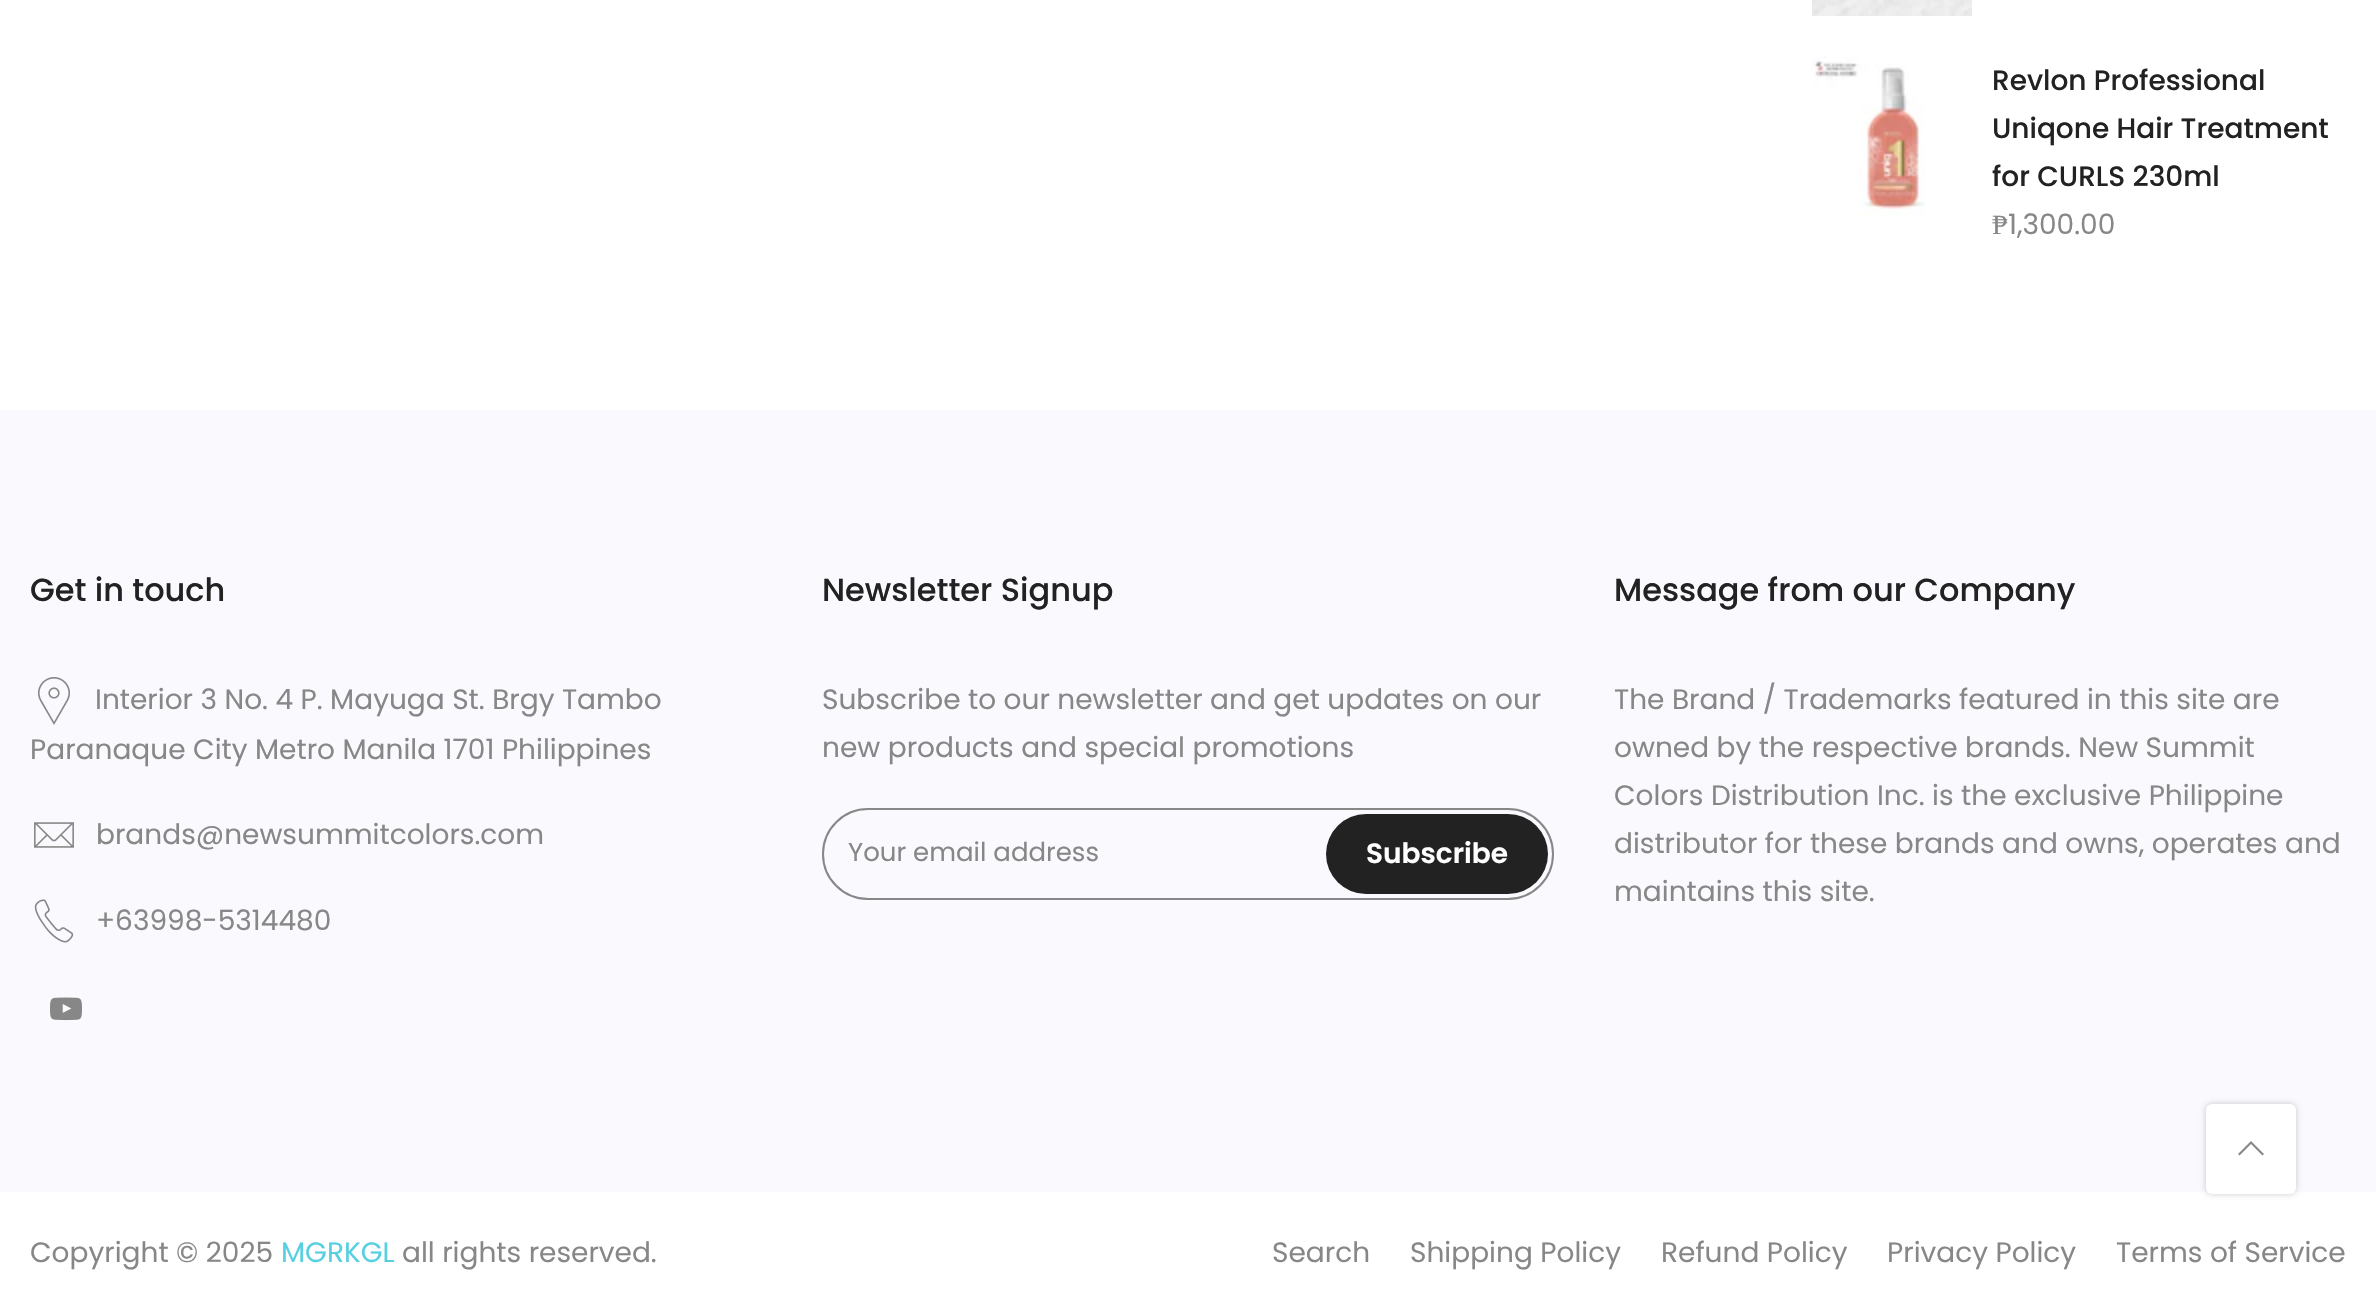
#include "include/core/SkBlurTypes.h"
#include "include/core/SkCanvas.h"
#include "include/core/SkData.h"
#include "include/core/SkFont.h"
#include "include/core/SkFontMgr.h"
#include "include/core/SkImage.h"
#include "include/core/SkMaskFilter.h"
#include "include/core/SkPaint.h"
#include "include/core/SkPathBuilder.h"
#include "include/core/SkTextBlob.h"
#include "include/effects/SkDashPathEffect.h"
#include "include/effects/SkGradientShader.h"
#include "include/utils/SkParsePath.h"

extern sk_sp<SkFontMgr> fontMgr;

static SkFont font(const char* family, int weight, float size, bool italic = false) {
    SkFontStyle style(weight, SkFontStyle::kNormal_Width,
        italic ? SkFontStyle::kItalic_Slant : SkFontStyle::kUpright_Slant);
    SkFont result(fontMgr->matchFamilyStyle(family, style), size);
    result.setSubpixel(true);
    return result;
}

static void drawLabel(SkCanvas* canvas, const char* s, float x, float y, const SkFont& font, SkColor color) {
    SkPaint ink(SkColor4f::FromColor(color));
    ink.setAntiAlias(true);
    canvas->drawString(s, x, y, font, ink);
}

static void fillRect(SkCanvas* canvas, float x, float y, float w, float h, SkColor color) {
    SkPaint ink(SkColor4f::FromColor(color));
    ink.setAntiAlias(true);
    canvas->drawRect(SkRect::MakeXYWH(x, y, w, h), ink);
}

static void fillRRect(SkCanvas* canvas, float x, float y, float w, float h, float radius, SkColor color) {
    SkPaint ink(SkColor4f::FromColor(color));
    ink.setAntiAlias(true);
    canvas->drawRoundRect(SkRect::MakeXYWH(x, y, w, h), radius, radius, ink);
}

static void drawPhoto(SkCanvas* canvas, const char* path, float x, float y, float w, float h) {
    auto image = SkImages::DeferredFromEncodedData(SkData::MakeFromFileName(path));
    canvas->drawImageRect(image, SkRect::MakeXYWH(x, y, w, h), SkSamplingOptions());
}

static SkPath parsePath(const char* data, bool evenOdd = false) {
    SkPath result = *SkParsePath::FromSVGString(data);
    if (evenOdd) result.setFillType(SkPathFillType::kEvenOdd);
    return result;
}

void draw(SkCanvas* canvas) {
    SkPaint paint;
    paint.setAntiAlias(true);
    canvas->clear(0xFFFFFFFF);
    drawPhoto(canvas, "assets/img1.png", 1812, 0, 160, 16);
    drawPhoto(canvas, "assets/img2.png", 1812, 56, 113, 160);
    SkFont font1 = font("Poppins", 500, 28);
    drawLabel(canvas, "Revlon Professional", 1992, 90, font1, 0xFF222222);
    drawLabel(canvas, "Uniqone Hair Treatment", 1992, 138, font1, 0xFF222222);
    drawLabel(canvas, "for CURLS 230ml", 1992, 186, font1, 0xFF222222);
    SkFont font2 = font("Liberation Serif", 400, 28);
    drawLabel(canvas, "₱", 1992, 234, font2, 0xFF878787);
    SkFont font3 = font("Poppins", 400, 28);
    drawLabel(canvas, "1,300.00", 2008, 234, font3, 0xFF878787);
    fillRect(canvas, 0, 410, 2376, 782, 0xFFF9F9FE);
    SkFont font4 = font("Poppins", 500, 32);
    drawLabel(canvas, "Get in touch", 30, 601, font4, 0xFF222222);
    drawPhoto(canvas, "assets/img3.png", 38, 677, 32, 48);
    drawLabel(canvas, "Interior 3 No. 4 P. Mayuga St. Brgy Tambo", 95, 709, font3, 0xFF878787);
    drawLabel(canvas, "Paranaque City Metro Manila 1701 Philippines", 30, 759, font3, 0xFF878787);
    drawPhoto(canvas, "assets/img4.png", 34, 822, 40, 26);
    drawLabel(canvas, "brands@newsummitcolors.com", 96, 844, font3, 0xFF878787);
    drawPhoto(canvas, "assets/img5.png", 34, 899, 40, 44);
    drawLabel(canvas, "+63998-5314480", 96, 930, font3, 0xFF878787);
    drawPhoto(canvas, "assets/img6.png", 50, 997, 32, 24);
    drawLabel(canvas, "Newsletter Signup", 822, 601, font4, 0xFF222222);
    drawLabel(canvas, "Subscribe to our newsletter and get updates on our", 822, 709, font3, 0xFF878787);
    drawLabel(canvas, "new products and special promotions", 822, 757, font3, 0xFF878787);
    paint.setStroke(true);
    paint.setStrokeWidth(2);
    paint.setColor(0xFF878787);
    canvas->drawRoundRect(SkRect::MakeXYWH(823, 809, 730, 90), 45, 45, paint);
    SkFont font5 = font("Poppins", 400, 26);
    drawLabel(canvas, "Your email address", 848, 861, font5, 0xFF878787);
    fillRRect(canvas, 1326, 814, 222, 80, 40, 0xFF222222);
    SkFont font6 = font("Poppins", 600, 28);
    drawLabel(canvas, "Subscribe", 1366, 863, font6, 0xFFFFFFFF);
    drawLabel(canvas, "Message from our Company", 1614, 601, font4, 0xFF222222);
    drawLabel(canvas, "The Brand / Trademarks featured in this site are", 1614, 709, font3, 0xFF878787);
    drawLabel(canvas, "owned by the respective brands. New Summit", 1614, 757, font3, 0xFF878787);
    drawLabel(canvas, "Colors Distribution Inc. is the exclusive Philippine", 1614, 805, font3, 0xFF878787);
    drawLabel(canvas, "distributor for these brands and owns, operates and", 1614, 853, font3, 0xFF878787);
    drawLabel(canvas, "maintains this site.", 1614, 901, font3, 0xFF878787);
    drawLabel(canvas, "Copyright © 2025", 30, 1262, font3, 0xFF878787);
    drawLabel(canvas, "MGRKGL", 281, 1262, font3, 0xFF56CFE1);
    drawLabel(canvas, "all rights reserved.", 402, 1262, font3, 0xFF878787);
    drawLabel(canvas, "Search", 1272, 1262, font3, 0xFF878787);
    drawLabel(canvas, "Shipping Policy", 1410, 1262, font3, 0xFF878787);
    drawLabel(canvas, "Refund Policy", 1661, 1262, font3, 0xFF878787);
    drawLabel(canvas, "Privacy Policy", 1887, 1262, font3, 0xFF878787);
    drawLabel(canvas, "Terms of Service", 2116, 1262, font3, 0xFF878787);
    paint.setStroke(false);
    paint.setColor(0x33000000);
    paint.setMaskFilter(SkMaskFilter::MakeBlur(kNormal_SkBlurStyle, 3));
    canvas->drawRoundRect(SkRect::MakeXYWH(2206, 1104, 90, 90), 6, 6, paint);
    paint.setMaskFilter(nullptr);
    fillRRect(canvas, 2206, 1104, 90, 90, 6, 0xFFFFFFFF);
    paint.setColor(0xFF878787);
    canvas->drawPath(parsePath("M2252.5 1142.5L2251 1141L2238 1154L2239.5 1155.5L2251 1144L2262.5 1155.5L2264 1154Z"), paint);
}
